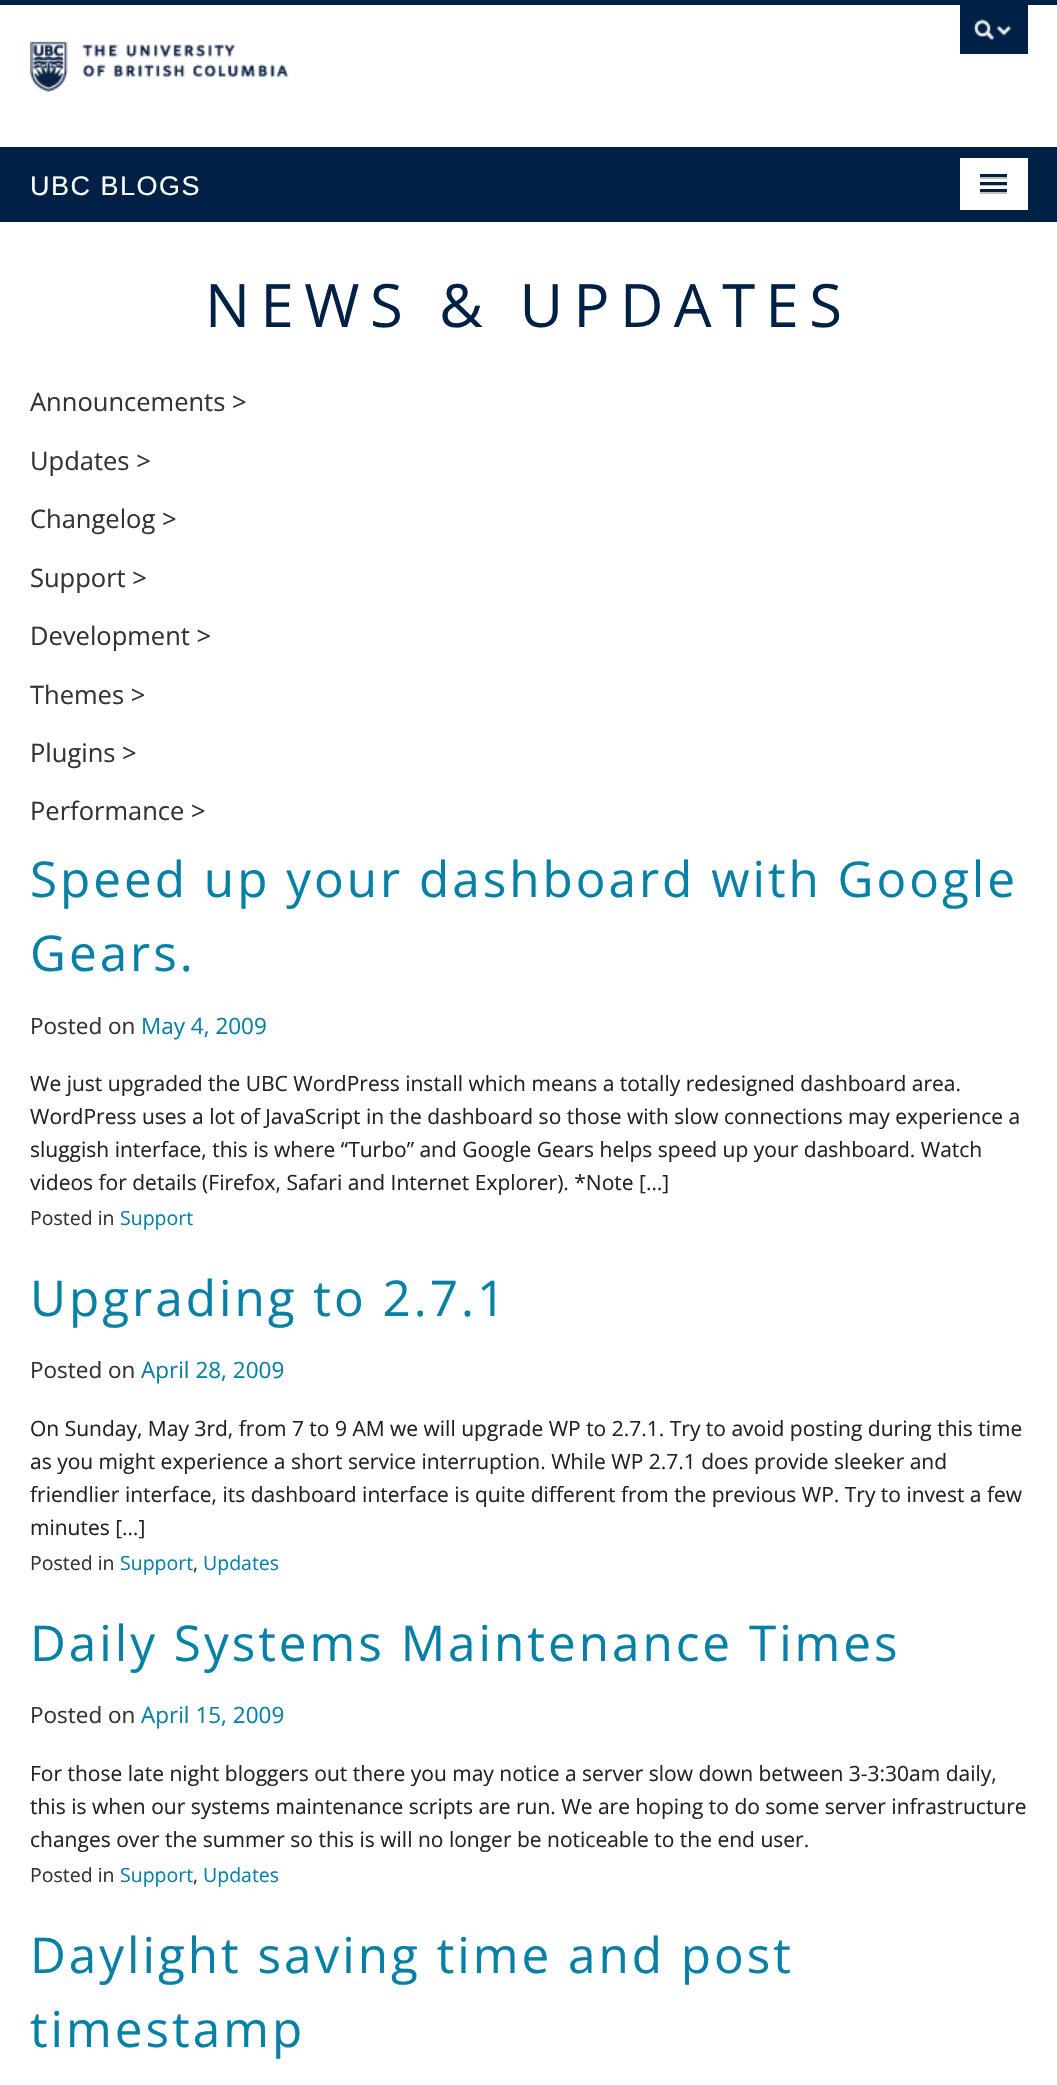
#include "include/core/SkBlurTypes.h"
#include "include/core/SkCanvas.h"
#include "include/core/SkData.h"
#include "include/core/SkFont.h"
#include "include/core/SkFontMgr.h"
#include "include/core/SkImage.h"
#include "include/core/SkMaskFilter.h"
#include "include/core/SkPaint.h"
#include "include/core/SkPathBuilder.h"
#include "include/core/SkTextBlob.h"
#include "include/effects/SkDashPathEffect.h"
#include "include/effects/SkGradientShader.h"
#include "include/utils/SkParsePath.h"

extern sk_sp<SkFontMgr> fontMgr;

static SkFont font(const char* family, int weight, float size, bool italic = false) {
    SkFontStyle style(weight, SkFontStyle::kNormal_Width,
        italic ? SkFontStyle::kItalic_Slant : SkFontStyle::kUpright_Slant);
    SkFont result(fontMgr->matchFamilyStyle(family, style), size);
    result.setSubpixel(true);
    return result;
}

static void drawLabel(SkCanvas* canvas, const char* s, float x, float y, const SkFont& font, SkColor color) {
    SkPaint ink(SkColor4f::FromColor(color));
    ink.setAntiAlias(true);
    canvas->drawString(s, x, y, font, ink);
}

static void drawTracked(SkCanvas* canvas, const char* s, float x, float y, const SkFont& font, const SkPaint& ink, float letter, float word) {
    std::vector<SkGlyphID> glyphs(font.countText(s, strlen(s), SkTextEncoding::kUTF8));
    std::vector<float> xs(glyphs.size());
    font.textToGlyphs(s, strlen(s), SkTextEncoding::kUTF8, glyphs);
    font.getXPos(glyphs, xs, x);
    float extra = 0;
    for (size_t i = 0; i < glyphs.size(); i++) {
        xs[i] += extra;
        extra += letter + word * (glyphs[i] == font.unicharToGlyph(' '));
    }
    canvas->drawTextBlob(SkTextBlob::MakeFromPosHGlyphs(glyphs, xs, y, font), 0, 0, ink);
}

static void fillRect(SkCanvas* canvas, float x, float y, float w, float h, SkColor color) {
    SkPaint ink(SkColor4f::FromColor(color));
    ink.setAntiAlias(true);
    canvas->drawRect(SkRect::MakeXYWH(x, y, w, h), ink);
}

static void drawPhoto(SkCanvas* canvas, const char* path, float x, float y, float w, float h) {
    auto image = SkImages::DeferredFromEncodedData(SkData::MakeFromFileName(path));
    canvas->drawImageRect(image, SkRect::MakeXYWH(x, y, w, h), SkSamplingOptions());
}

static SkPath parsePath(const char* data, bool evenOdd = false) {
    SkPath result = *SkParsePath::FromSVGString(data);
    if (evenOdd) result.setFillType(SkPathFillType::kEvenOdd);
    return result;
}

void draw(SkCanvas* canvas) {
    SkPaint paint;
    paint.setAntiAlias(true);
    canvas->clear(0xFFFFFFFF);
    fillRect(canvas, 0, 0, 1057, 5, 0xFF002145);
    drawPhoto(canvas, "assets/img1.png", 30, 41, 259, 51);
    fillRect(canvas, 960, 5, 68, 49, 0xFF002145);
    drawPhoto(canvas, "assets/img2.png", 973, 19, 39, 22);
    fillRect(canvas, 0, 147, 1057, 75, 0xFF002145);
    SkFont font1 = font("Liberation Sans", 400, 27);
    paint.setColor(0xFFFFFFFF);
    drawTracked(canvas, "UBC BLOGS", 30, 195, font1, paint, 1.5f, 0);
    fillRect(canvas, 960, 158, 68, 52, 0xFFFFFFFF);
    paint.setColor(0xFFBFBFBF);
    canvas->drawPath(parsePath("M980 177V179H1007V176H1006.5V177Z"), paint);
    fillRect(canvas, 980, 174, 27, 3, 0xFF002145);
    canvas->drawPath(parsePath("M980 184.5V186H1007V183H1006.5V184.5Z"), paint);
    fillRect(canvas, 980, 182, 27, 3, 0xFF002145);
    canvas->drawPath(parsePath("M980 192V194H1007V191H1006.5V192Z"), paint);
    fillRect(canvas, 980, 189, 27, 3, 0xFF002145);
    SkFont font2 = font("Open Sans", 400, 59.8f);
    paint.setColor(0xFF002145);
    drawTracked(canvas, "NEWS & UPDATES", 205, 327, font2, paint, 10.5f, 0);
    SkFont font3 = font("Open Sans", 400, 25.5f);
    drawLabel(canvas, "Announcements >", 30, 411, font3, 0xFF333333);
    drawLabel(canvas, "Updates >", 30, 470, font3, 0xFF333333);
    drawLabel(canvas, "Changelog >", 30, 528, font3, 0xFF333333);
    drawLabel(canvas, "Support >", 30, 587, font3, 0xFF333333);
    drawLabel(canvas, "Development >", 30, 645, font3, 0xFF333333);
    drawLabel(canvas, "Themes >", 30, 704, font3, 0xFF333333);
    drawLabel(canvas, "Plugins >", 30, 762, font3, 0xFF333333);
    drawLabel(canvas, "Performance >", 30, 820, font3, 0xFF333333);
    SkFont font4 = font("Open Sans", 400, 49.4f);
    paint.setColor(0xFF0680A6);
    drawTracked(canvas, "Speed up your dashboard with Google", 30, 897, font4, paint, 3, 0);
    drawTracked(canvas, "Gears.", 30, 971, font4, paint, 3, 0);
    SkFont font5 = font("Open Sans", 400, 22.5f);
    drawLabel(canvas, "Posted on", 30, 1034, font5, 0xFF333333);
    drawLabel(canvas, "May 4, 2009", 141, 1034, font5, 0xFF0680A6);
    SkFont font6 = font("Open Sans", 400, 21);
    drawLabel(canvas, "We just upgraded the UBC WordPress install which means a totally redesigned dashboard area.", 30, 1091, font6, 0xFF222222);
    drawLabel(canvas, "WordPress uses a lot of JavaScript in the dashboard so those with slow connections may experience a", 30, 1124, font6, 0xFF222222);
    drawLabel(canvas, "sluggish interface, this is where “Turbo” and Google Gears helps speed up your dashboard. Watch", 30, 1157, font6, 0xFF222222);
    drawLabel(canvas, "videos for details (Firefox, Safari and Internet Explorer). *Note […]", 30, 1190, font6, 0xFF222222);
    SkFont font7 = font("Open Sans", 400, 19.5f);
    drawLabel(canvas, "Posted in", 30, 1225, font7, 0xFF333333);
    drawLabel(canvas, "Support", 120, 1225, font7, 0xFF0680A6);
    drawTracked(canvas, "Upgrading to 2.7.1", 30, 1316, font4, paint, 3, 0);
    drawLabel(canvas, "Posted on", 30, 1378, font5, 0xFF333333);
    drawLabel(canvas, "April 28, 2009", 141, 1378, font5, 0xFF0680A6);
    drawLabel(canvas, "On Sunday, May 3rd, from 7 to 9 AM we will upgrade WP to 2.7.1. Try to avoid posting during this time", 30, 1436, font6, 0xFF222222);
    drawLabel(canvas, "as you might experience a short service interruption. While WP 2.7.1 does provide sleeker and", 30, 1469, font6, 0xFF222222);
    drawLabel(canvas, "friendlier interface, its dashboard interface is quite different from the previous WP. Try to invest a few", 30, 1502, font6, 0xFF222222);
    drawLabel(canvas, "minutes […]", 30, 1535, font6, 0xFF222222);
    drawLabel(canvas, "Posted in", 30, 1570, font7, 0xFF333333);
    drawLabel(canvas, "Support", 120, 1570, font7, 0xFF0680A6);
    drawLabel(canvas, ",", 193, 1570, font7, 0xFF333333);
    drawLabel(canvas, "Updates", 203, 1570, font7, 0xFF0680A6);
    drawTracked(canvas, "Daily Systems Maintenance Times", 30, 1661, font4, paint, 3, 0);
    drawLabel(canvas, "Posted on", 30, 1723, font5, 0xFF333333);
    drawLabel(canvas, "April 15, 2009", 141, 1723, font5, 0xFF0680A6);
    drawLabel(canvas, "For those late night bloggers out there you may notice a server slow down between 3-3:30am daily,", 30, 1781, font6, 0xFF222222);
    drawLabel(canvas, "this is when our systems maintenance scripts are run. We are hoping to do some server infrastructure", 30, 1814, font6, 0xFF222222);
    drawLabel(canvas, "changes over the summer so this is will no longer be noticeable to the end user.", 30, 1847, font6, 0xFF222222);
    drawLabel(canvas, "Posted in", 30, 1882, font7, 0xFF333333);
    drawLabel(canvas, "Support", 120, 1882, font7, 0xFF0680A6);
    drawLabel(canvas, ",", 193, 1882, font7, 0xFF333333);
    drawLabel(canvas, "Updates", 203, 1882, font7, 0xFF0680A6);
    drawTracked(canvas, "Daylight saving time and post", 30, 1973, font4, paint, 3, 0);
    drawTracked(canvas, "timestamp", 30, 2047, font4, paint, 3, 0);
}
